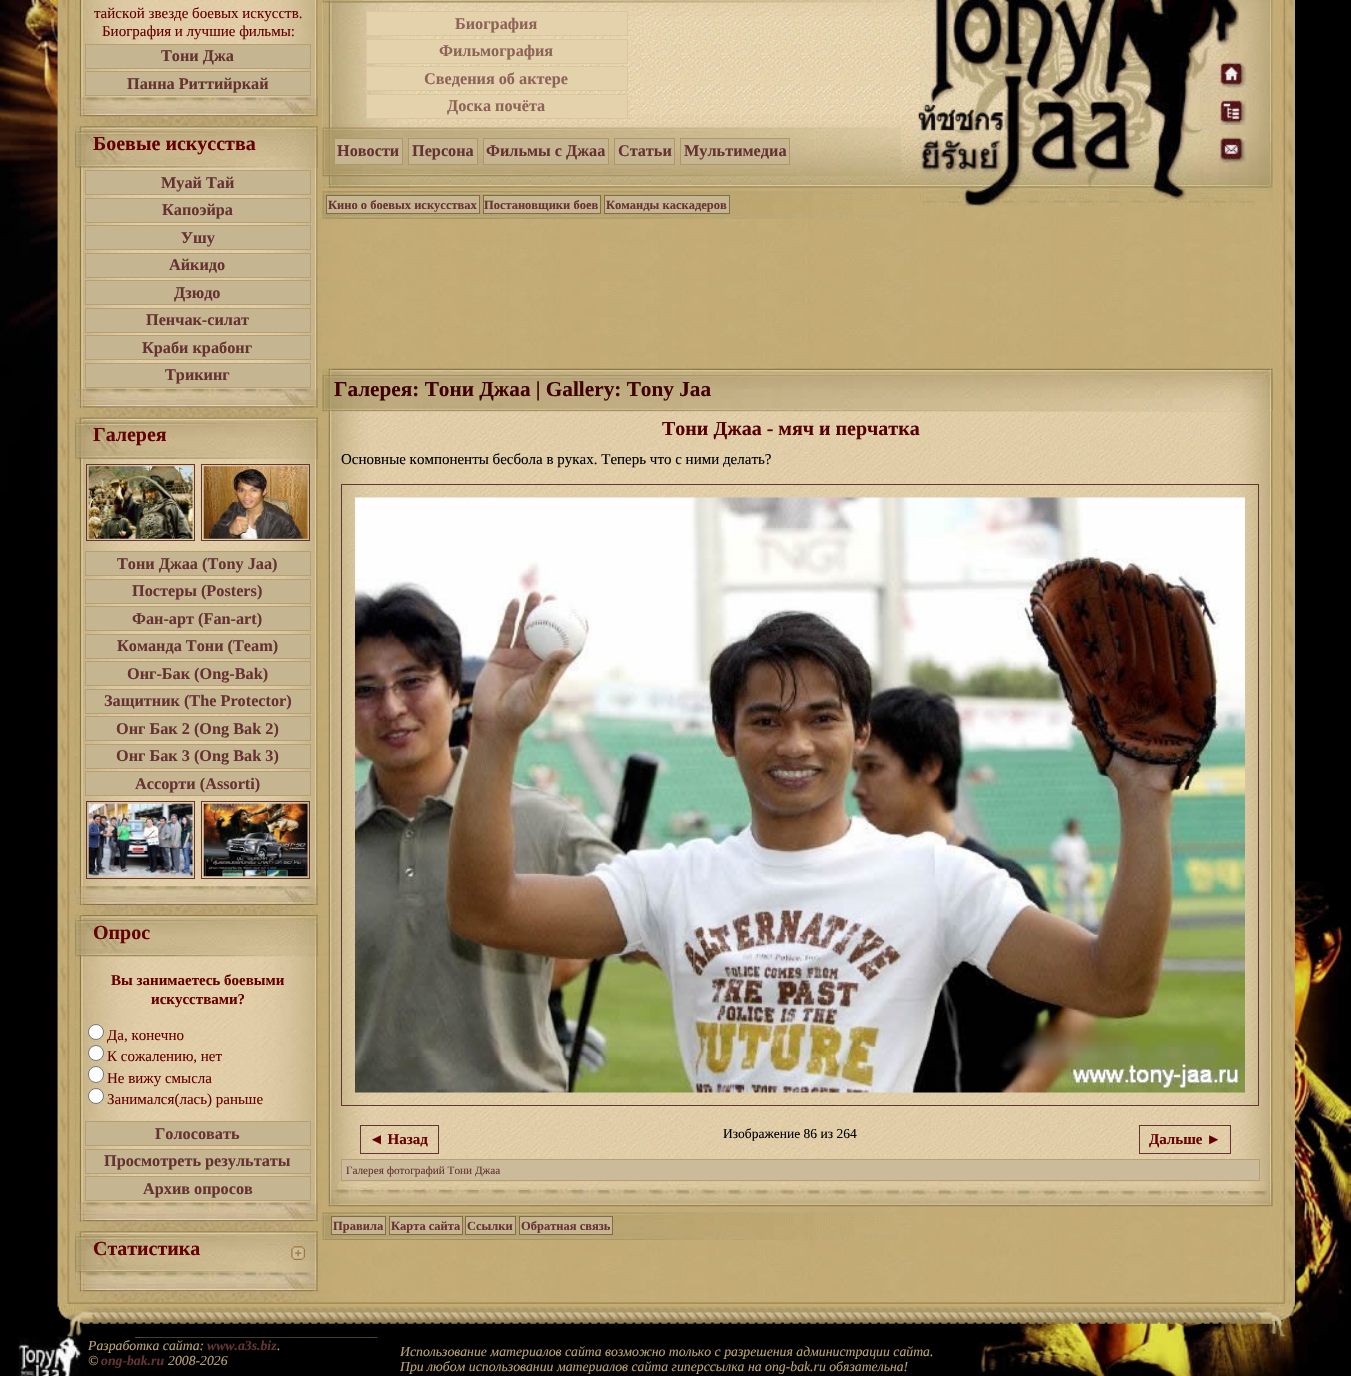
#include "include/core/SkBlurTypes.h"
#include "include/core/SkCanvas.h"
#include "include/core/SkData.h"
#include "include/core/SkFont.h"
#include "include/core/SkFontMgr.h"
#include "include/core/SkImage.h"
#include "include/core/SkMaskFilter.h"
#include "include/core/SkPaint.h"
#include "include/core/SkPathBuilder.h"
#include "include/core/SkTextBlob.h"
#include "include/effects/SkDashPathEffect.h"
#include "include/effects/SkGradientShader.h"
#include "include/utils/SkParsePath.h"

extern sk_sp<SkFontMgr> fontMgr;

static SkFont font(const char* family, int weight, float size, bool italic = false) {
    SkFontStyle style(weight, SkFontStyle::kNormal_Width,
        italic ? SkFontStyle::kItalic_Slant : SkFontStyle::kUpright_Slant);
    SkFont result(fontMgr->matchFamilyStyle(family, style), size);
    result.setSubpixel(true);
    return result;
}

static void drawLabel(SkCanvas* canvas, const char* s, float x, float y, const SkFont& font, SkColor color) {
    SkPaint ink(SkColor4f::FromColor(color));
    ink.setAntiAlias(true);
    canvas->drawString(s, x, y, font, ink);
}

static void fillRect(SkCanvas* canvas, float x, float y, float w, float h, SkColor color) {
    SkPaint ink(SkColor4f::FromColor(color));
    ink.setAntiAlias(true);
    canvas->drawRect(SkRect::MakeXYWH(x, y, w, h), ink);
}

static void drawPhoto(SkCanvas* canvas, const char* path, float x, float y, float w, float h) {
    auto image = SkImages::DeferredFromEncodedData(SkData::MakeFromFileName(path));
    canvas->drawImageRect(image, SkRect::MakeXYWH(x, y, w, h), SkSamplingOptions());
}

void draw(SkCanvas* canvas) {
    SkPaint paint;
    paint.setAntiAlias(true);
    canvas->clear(0xFF000000);
    drawPhoto(canvas, "assets/img1.png", 0, 0, 58, 494);
    drawPhoto(canvas, "assets/img2.png", 978, 881, 373, 495);
    fillRect(canvas, 58, 0, 1237, 1303, 0xFFC2AB75);
    drawPhoto(canvas, "assets/img3.png", 57, 0, 1237, 1303);
    drawPhoto(canvas, "assets/img4.png", 75, 0, 243, 117);
    SkFont font1 = font("Liberation Serif", 400, 15);
    drawLabel(canvas, "тайской звезде боевых искусств.", 94, 18, font1, 0xFF660000);
    drawLabel(canvas, "Биография и лучшие фильмы:", 102, 36, font1, 0xFF660000);
    paint.setColor(0xFFC6B591);
    canvas->drawRect(SkRect::MakeXYWH(85.5f, 44.5f, 225, 24), paint);
    paint.setStroke(true);
    paint.setStrokeWidth(1);
    paint.setColor(0xFFB69F72);
    canvas->drawRect(SkRect::MakeXYWH(85.5f, 44.5f, 225, 24), paint);
    SkFont font2 = font("Liberation Serif", 700, 16.25f);
    drawLabel(canvas, "Тони Джа", 161, 61, font2, 0xFF663333);
    paint.setStroke(false);
    paint.setColor(0xFFC6B591);
    canvas->drawRect(SkRect::MakeXYWH(85.5f, 71.5f, 225, 24), paint);
    paint.setStroke(true);
    paint.setColor(0xFFB69F72);
    canvas->drawRect(SkRect::MakeXYWH(85.5f, 71.5f, 225, 24), paint);
    drawLabel(canvas, "Панна Риттийркай", 127, 89, font2, 0xFF663333);
    drawPhoto(canvas, "assets/img5.png", 75, 97, 243, 20);
    drawPhoto(canvas, "assets/img6.png", 75, 126, 243, 282);
    drawPhoto(canvas, "assets/img7.png", 75, 126, 243, 42);
    SkFont font3 = font("Liberation Serif", 700, 20);
    drawLabel(canvas, "Боевые искусства", 93, 150, font3, 0xFF660000);
    paint.setStroke(false);
    paint.setColor(0xFFC6B591);
    canvas->drawRect(SkRect::MakeXYWH(85.5f, 170.5f, 225, 24), paint);
    paint.setStroke(true);
    paint.setColor(0xFFB69F72);
    canvas->drawRect(SkRect::MakeXYWH(85.5f, 170.5f, 225, 24), paint);
    drawLabel(canvas, "Муай Тай", 161, 188, font2, 0xFF663333);
    paint.setStroke(false);
    paint.setColor(0xFFC6B591);
    canvas->drawRect(SkRect::MakeXYWH(85.5f, 198.5f, 225, 24), paint);
    paint.setStroke(true);
    paint.setColor(0xFFB69F72);
    canvas->drawRect(SkRect::MakeXYWH(85.5f, 198.5f, 225, 24), paint);
    drawLabel(canvas, "Капоэйра", 162, 215, font2, 0xFF663333);
    paint.setStroke(false);
    paint.setColor(0xFFC6B591);
    canvas->drawRect(SkRect::MakeXYWH(85.5f, 225.5f, 225, 24), paint);
    paint.setStroke(true);
    paint.setColor(0xFFB69F72);
    canvas->drawRect(SkRect::MakeXYWH(85.5f, 225.5f, 225, 24), paint);
    drawLabel(canvas, "Ушу", 181, 243, font2, 0xFF663333);
    paint.setStroke(false);
    paint.setColor(0xFFC6B591);
    canvas->drawRect(SkRect::MakeXYWH(85.5f, 253.5f, 225, 24), paint);
    paint.setStroke(true);
    paint.setColor(0xFFB69F72);
    canvas->drawRect(SkRect::MakeXYWH(85.5f, 253.5f, 225, 24), paint);
    drawLabel(canvas, "Айкидо", 169, 270, font2, 0xFF663333);
    paint.setStroke(false);
    paint.setColor(0xFFC6B591);
    canvas->drawRect(SkRect::MakeXYWH(85.5f, 280.5f, 225, 24), paint);
    paint.setStroke(true);
    paint.setColor(0xFFB69F72);
    canvas->drawRect(SkRect::MakeXYWH(85.5f, 280.5f, 225, 24), paint);
    drawLabel(canvas, "Дзюдо", 174, 298, font2, 0xFF663333);
    paint.setStroke(false);
    paint.setColor(0xFFC6B591);
    canvas->drawRect(SkRect::MakeXYWH(85.5f, 308.5f, 225, 24), paint);
    paint.setStroke(true);
    paint.setColor(0xFFB69F72);
    canvas->drawRect(SkRect::MakeXYWH(85.5f, 308.5f, 225, 24), paint);
    drawLabel(canvas, "Пенчак-силат", 146, 325, font2, 0xFF663333);
    paint.setStroke(false);
    paint.setColor(0xFFC6B591);
    canvas->drawRect(SkRect::MakeXYWH(85.5f, 335.5f, 225, 24), paint);
    paint.setStroke(true);
    paint.setColor(0xFFB69F72);
    canvas->drawRect(SkRect::MakeXYWH(85.5f, 335.5f, 225, 24), paint);
    drawLabel(canvas, "Краби крабонг", 142, 353, font2, 0xFF663333);
    paint.setStroke(false);
    paint.setColor(0xFFC6B591);
    canvas->drawRect(SkRect::MakeXYWH(85.5f, 363.5f, 225, 24), paint);
    paint.setStroke(true);
    paint.setColor(0xFFB69F72);
    canvas->drawRect(SkRect::MakeXYWH(85.5f, 363.5f, 225, 24), paint);
    drawLabel(canvas, "Трикинг", 165, 380, font2, 0xFF663333);
    drawPhoto(canvas, "assets/img8.png", 75, 388, 243, 20);
    drawPhoto(canvas, "assets/img9.png", 75, 417, 243, 488);
    drawPhoto(canvas, "assets/img10.png", 75, 417, 243, 42);
    drawLabel(canvas, "Галерея", 93, 441, font3, 0xFF660000);
    paint.setColor(0xFF663333);
    canvas->drawRect(SkRect::MakeXYWH(86.5f, 464.5f, 108, 76), paint);
    canvas->drawRect(SkRect::MakeXYWH(201.5f, 464.5f, 108, 76), paint);
    drawPhoto(canvas, "assets/img11.png", 88, 466, 105, 73);
    drawPhoto(canvas, "assets/img12.png", 203, 466, 105, 73);
    paint.setStroke(false);
    paint.setColor(0xFFC6B591);
    canvas->drawRect(SkRect::MakeXYWH(85.5f, 551.5f, 225, 24), paint);
    paint.setStroke(true);
    paint.setColor(0xFFB69F72);
    canvas->drawRect(SkRect::MakeXYWH(85.5f, 551.5f, 225, 24), paint);
    drawLabel(canvas, "Тони Джаа (Tony Jaa)", 117, 569, font2, 0xFF663333);
    paint.setStroke(false);
    paint.setColor(0xFFC6B591);
    canvas->drawRect(SkRect::MakeXYWH(85.5f, 579.5f, 225, 24), paint);
    paint.setStroke(true);
    paint.setColor(0xFFB69F72);
    canvas->drawRect(SkRect::MakeXYWH(85.5f, 579.5f, 225, 24), paint);
    drawLabel(canvas, "Постеры (Posters)", 132, 596, font2, 0xFF663333);
    paint.setStroke(false);
    paint.setColor(0xFFC6B591);
    canvas->drawRect(SkRect::MakeXYWH(85.5f, 606.5f, 225, 24), paint);
    paint.setStroke(true);
    paint.setColor(0xFFB69F72);
    canvas->drawRect(SkRect::MakeXYWH(85.5f, 606.5f, 225, 24), paint);
    drawLabel(canvas, "Фан-арт (Fan-art)", 132, 624, font2, 0xFF663333);
    paint.setStroke(false);
    paint.setColor(0xFFC6B591);
    canvas->drawRect(SkRect::MakeXYWH(85.5f, 634.5f, 225, 24), paint);
    paint.setStroke(true);
    paint.setColor(0xFFB69F72);
    canvas->drawRect(SkRect::MakeXYWH(85.5f, 634.5f, 225, 24), paint);
    drawLabel(canvas, "Команда Тони (Team)", 117, 651, font2, 0xFF663333);
    paint.setStroke(false);
    paint.setColor(0xFFC6B591);
    canvas->drawRect(SkRect::MakeXYWH(85.5f, 661.5f, 225, 24), paint);
    paint.setStroke(true);
    paint.setColor(0xFFB69F72);
    canvas->drawRect(SkRect::MakeXYWH(85.5f, 661.5f, 225, 24), paint);
    drawLabel(canvas, "Онг-Бак (Ong-Bak)", 127, 679, font2, 0xFF663333);
    paint.setStroke(false);
    paint.setColor(0xFFC6B591);
    canvas->drawRect(SkRect::MakeXYWH(85.5f, 689.5f, 225, 24), paint);
    paint.setStroke(true);
    paint.setColor(0xFFB69F72);
    canvas->drawRect(SkRect::MakeXYWH(85.5f, 689.5f, 225, 24), paint);
    drawLabel(canvas, "Защитник (The Protector)", 104, 706, font2, 0xFF663333);
    paint.setStroke(false);
    paint.setColor(0xFFC6B591);
    canvas->drawRect(SkRect::MakeXYWH(85.5f, 716.5f, 225, 24), paint);
    paint.setStroke(true);
    paint.setColor(0xFFB69F72);
    canvas->drawRect(SkRect::MakeXYWH(85.5f, 716.5f, 225, 24), paint);
    drawLabel(canvas, "Онг Бак 2 (Ong Bak 2)", 116, 734, font2, 0xFF663333);
    paint.setStroke(false);
    paint.setColor(0xFFC6B591);
    canvas->drawRect(SkRect::MakeXYWH(85.5f, 744.5f, 225, 24), paint);
    paint.setStroke(true);
    paint.setColor(0xFFB69F72);
    canvas->drawRect(SkRect::MakeXYWH(85.5f, 744.5f, 225, 24), paint);
    drawLabel(canvas, "Онг Бак 3 (Ong Bak 3)", 116, 761, font2, 0xFF663333);
    paint.setStroke(false);
    paint.setColor(0xFFC6B591);
    canvas->drawRect(SkRect::MakeXYWH(85.5f, 771.5f, 225, 24), paint);
    paint.setStroke(true);
    paint.setColor(0xFFB69F72);
    canvas->drawRect(SkRect::MakeXYWH(85.5f, 771.5f, 225, 24), paint);
    drawLabel(canvas, "Ассорти (Assorti)", 135, 789, font2, 0xFF663333);
    paint.setColor(0xFF663333);
    canvas->drawRect(SkRect::MakeXYWH(86.5f, 801.5f, 108, 77), paint);
    canvas->drawRect(SkRect::MakeXYWH(201.5f, 801.5f, 108, 77), paint);
    drawPhoto(canvas, "assets/img13.png", 88, 803, 105, 74);
    drawPhoto(canvas, "assets/img14.png", 203, 803, 105, 74);
    drawPhoto(canvas, "assets/img15.png", 75, 886, 243, 19);
    drawPhoto(canvas, "assets/img16.png", 75, 915, 243, 307);
    drawPhoto(canvas, "assets/img17.png", 75, 915, 243, 42);
    drawLabel(canvas, "Опрос", 93, 939, font3, 0xFF660000);
    SkFont font4 = font("Liberation Serif", 700, 15);
    drawLabel(canvas, "Вы занимаетесь боевыми", 111, 985, font4, 0xFF660000);
    drawLabel(canvas, "искусствами?", 151, 1004, font4, 0xFF660000);
    paint.setStroke(false);
    paint.setColor(0xFFFFFFFF);
    canvas->drawCircle(96, 1032, 7.5f, paint);
    paint.setStroke(true);
    paint.setColor(0xFF767676);
    canvas->drawCircle(96, 1032, 7.5f, paint);
    drawLabel(canvas, "Да, конечно", 107, 1040, font1, 0xFF660000);
    paint.setStroke(false);
    paint.setColor(0xFFFFFFFF);
    canvas->drawCircle(96, 1053, 7.5f, paint);
    paint.setStroke(true);
    paint.setColor(0xFF767676);
    canvas->drawCircle(96, 1053, 7.5f, paint);
    drawLabel(canvas, "К сожалению, нет", 107, 1061, font1, 0xFF660000);
    paint.setStroke(false);
    paint.setColor(0xFFFFFFFF);
    canvas->drawRoundRect(SkRect::MakeXYWH(88.5f, 1066.5f, 15, 16), 7.5f, 7.5f, paint);
    paint.setStroke(true);
    paint.setColor(0xFF767676);
    canvas->drawRoundRect(SkRect::MakeXYWH(88.5f, 1066.5f, 15, 16), 7.5f, 7.5f, paint);
    drawLabel(canvas, "Не вижу смысла", 107, 1083, font1, 0xFF660000);
    paint.setStroke(false);
    paint.setColor(0xFFFFFFFF);
    canvas->drawCircle(96, 1096, 7.5f, paint);
    paint.setStroke(true);
    paint.setColor(0xFF767676);
    canvas->drawCircle(96, 1096, 7.5f, paint);
    drawLabel(canvas, "Занимался(лась) раньше", 107, 1104, font1, 0xFF660000);
    paint.setStroke(false);
    paint.setColor(0xFFC6B591);
    canvas->drawRect(SkRect::MakeXYWH(85.5f, 1121.5f, 225, 24), paint);
    paint.setStroke(true);
    paint.setColor(0xFFB69F72);
    canvas->drawRect(SkRect::MakeXYWH(85.5f, 1121.5f, 225, 24), paint);
    drawLabel(canvas, "Голосовать", 155, 1139, font2, 0xFF663333);
    paint.setStroke(false);
    paint.setColor(0xFFC6B591);
    canvas->drawRect(SkRect::MakeXYWH(85.5f, 1149.5f, 225, 24), paint);
    paint.setStroke(true);
    paint.setColor(0xFFB69F72);
    canvas->drawRect(SkRect::MakeXYWH(85.5f, 1149.5f, 225, 24), paint);
    drawLabel(canvas, "Просмотреть результаты", 104, 1166, font2, 0xFF663333);
    paint.setStroke(false);
    paint.setColor(0xFFC6B591);
    canvas->drawRect(SkRect::MakeXYWH(85.5f, 1176.5f, 225, 24), paint);
    paint.setStroke(true);
    paint.setColor(0xFFB69F72);
    canvas->drawRect(SkRect::MakeXYWH(85.5f, 1176.5f, 225, 24), paint);
    drawLabel(canvas, "Архив опросов", 143, 1194, font2, 0xFF663333);
    drawPhoto(canvas, "assets/img18.png", 75, 1202, 243, 20);
    drawPhoto(canvas, "assets/img19.png", 75, 1231, 243, 61);
    drawPhoto(canvas, "assets/img20.png", 75, 1231, 243, 42);
    drawLabel(canvas, "Статистика", 93, 1255, font3, 0xFF660000);
    drawPhoto(canvas, "assets/img21.png", 291, 1246, 14, 14);
    drawPhoto(canvas, "assets/img22.png", 75, 1272, 243, 20);
    drawPhoto(canvas, "assets/img23.png", 322, 0, 951, 188);
    drawPhoto(canvas, "assets/img24.png", 322, 0, 88, 188);
    drawPhoto(canvas, "assets/img25.png", 322, 0, 579, 3);
    paint.setStroke(false);
    paint.setColor(0xFFE4D2AC);
    canvas->drawRect(SkRect::MakeXYWH(366.5f, 11.5f, 261, 24), paint);
    paint.setStroke(true);
    paint.setColor(0xFFDAC79F);
    canvas->drawRect(SkRect::MakeXYWH(366.5f, 11.5f, 261, 24), paint);
    drawLabel(canvas, "Биография", 455, 29, font2, 0xFF8E6459);
    paint.setStroke(false);
    paint.setColor(0xFFE4D2AC);
    canvas->drawRect(SkRect::MakeXYWH(366.5f, 39.5f, 261, 24), paint);
    paint.setStroke(true);
    paint.setColor(0xFFDAC79F);
    canvas->drawRect(SkRect::MakeXYWH(366.5f, 39.5f, 261, 24), paint);
    drawLabel(canvas, "Фильмография", 439, 56, font2, 0xFF8E6459);
    paint.setStroke(false);
    paint.setColor(0xFFE4D2AC);
    canvas->drawRect(SkRect::MakeXYWH(366.5f, 66.5f, 261, 24), paint);
    paint.setStroke(true);
    paint.setColor(0xFFDAC79F);
    canvas->drawRect(SkRect::MakeXYWH(366.5f, 66.5f, 261, 24), paint);
    drawLabel(canvas, "Сведения об актере", 424, 84, font2, 0xFF8E6459);
    paint.setStroke(false);
    paint.setColor(0xFFE4D2AC);
    canvas->drawRect(SkRect::MakeXYWH(366.5f, 94.5f, 261, 24), paint);
    paint.setStroke(true);
    paint.setColor(0xFFDAC79F);
    canvas->drawRect(SkRect::MakeXYWH(366.5f, 94.5f, 261, 24), paint);
    drawLabel(canvas, "Доска почёта", 447, 111, font2, 0xFF8E6459);
    drawPhoto(canvas, "assets/img26.png", 322, 127, 579, 50);
    paint.setStroke(false);
    paint.setColor(0xFFC6B591);
    canvas->drawRect(SkRect::MakeXYWH(334.5f, 138.5f, 68, 26), paint);
    paint.setStroke(true);
    paint.setColor(0xFFB09766);
    canvas->drawRect(SkRect::MakeXYWH(334.5f, 138.5f, 68, 26), paint);
    drawLabel(canvas, "Новости", 337, 156, font2, 0xFF663333);
    paint.setStroke(false);
    paint.setColor(0xFFC6B591);
    canvas->drawRect(SkRect::MakeXYWH(408.5f, 138.5f, 69, 26), paint);
    paint.setStroke(true);
    paint.setColor(0xFFB09766);
    canvas->drawRect(SkRect::MakeXYWH(408.5f, 138.5f, 69, 26), paint);
    drawLabel(canvas, "Персона", 412, 156, font2, 0xFF663333);
    paint.setStroke(false);
    paint.setColor(0xFFC6B591);
    canvas->drawRect(SkRect::MakeXYWH(483.5f, 138.5f, 125, 26), paint);
    paint.setStroke(true);
    paint.setColor(0xFFB09766);
    canvas->drawRect(SkRect::MakeXYWH(483.5f, 138.5f, 125, 26), paint);
    drawLabel(canvas, "Фильмы с Джаа", 486, 156, font2, 0xFF663333);
    paint.setStroke(false);
    paint.setColor(0xFFC6B591);
    canvas->drawRect(SkRect::MakeXYWH(614.5f, 138.5f, 60, 26), paint);
    paint.setStroke(true);
    paint.setColor(0xFFB09766);
    canvas->drawRect(SkRect::MakeXYWH(614.5f, 138.5f, 60, 26), paint);
    drawLabel(canvas, "Статьи", 618, 156, font2, 0xFF663333);
    paint.setStroke(false);
    paint.setColor(0xFFC6B591);
    canvas->drawRect(SkRect::MakeXYWH(680.5f, 138.5f, 109, 26), paint);
    paint.setStroke(true);
    paint.setColor(0xFFB09766);
    canvas->drawRect(SkRect::MakeXYWH(680.5f, 138.5f, 109, 26), paint);
    drawLabel(canvas, "Мультимедиа", 684, 156, font2, 0xFF663333);
    drawPhoto(canvas, "assets/img27.png", 918, 0, 355, 207);
    drawPhoto(canvas, "assets/img28.png", 1220, 62, 27, 26);
    drawPhoto(canvas, "assets/img29.png", 1220, 100, 27, 25);
    drawPhoto(canvas, "assets/img30.png", 1220, 137, 27, 26);
    drawPhoto(canvas, "assets/img31.png", 322, 191, 569, 28);
    paint.setStroke(false);
    paint.setColor(0xFFC6B591);
    canvas->drawRect(SkRect::MakeXYWH(326.5f, 195.5f, 153, 18), paint);
    paint.setStroke(true);
    paint.setColor(0xFF826C44);
    canvas->drawRect(SkRect::MakeXYWH(326.5f, 195.5f, 153, 18), paint);
    SkFont font5 = font("Liberation Serif", 700, 12.5f);
    drawLabel(canvas, "Кино о боевых искусствах", 328, 209, font5, 0xFF663333);
    paint.setStroke(false);
    paint.setColor(0xFFC6B591);
    canvas->drawRect(SkRect::MakeXYWH(483.5f, 195.5f, 117, 18), paint);
    paint.setStroke(true);
    paint.setColor(0xFF826C44);
    canvas->drawRect(SkRect::MakeXYWH(483.5f, 195.5f, 117, 18), paint);
    drawLabel(canvas, "Постановщики боев", 484, 209, font5, 0xFF663333);
    paint.setStroke(false);
    paint.setColor(0xFFC6B591);
    canvas->drawRect(SkRect::MakeXYWH(604.5f, 195.5f, 125, 18), paint);
    paint.setStroke(true);
    paint.setColor(0xFF826C44);
    canvas->drawRect(SkRect::MakeXYWH(604.5f, 195.5f, 125, 18), paint);
    drawLabel(canvas, "Команды каскадеров", 606, 209, font5, 0xFF663333);
    drawPhoto(canvas, "assets/img32.png", 322, 368, 951, 44);
    SkFont font6 = font("Liberation Serif", 700, 21.25f);
    drawLabel(canvas, "Галерея: Тони Джаа | Gallery: Tony Jaa", 334, 396, font6, 0xFF400000);
    drawPhoto(canvas, "assets/img33.png", 328, 411, 945, 771);
    drawLabel(canvas, "Тони Джаа - мяч и перчатка", 662, 435, font3, 0xFF550000);
    drawLabel(canvas, "Основные компоненты бесбола в руках. Теперь что с ними делать?", 341, 464, font1, 0xFF000000);
    paint.setColor(0xFF663333);
    canvas->drawRect(SkRect::MakeXYWH(341.5f, 484.5f, 917, 621), paint);
    drawPhoto(canvas, "assets/img34.png", 355, 497, 890, 596);
    canvas->drawRect(SkRect::MakeXYWH(360.5f, 1125.5f, 78, 28), paint);
    drawLabel(canvas, "◄ Назад", 369, 1144, font4, 0xFF660000);
    SkFont font7 = font("Liberation Serif", 400, 13.5f);
    drawLabel(canvas, "Изображение 86 из 264", 723, 1138, font7, 0xFF000000);
    canvas->drawRect(SkRect::MakeXYWH(1139.5f, 1125.5f, 91, 28), paint);
    drawLabel(canvas, "Дальше ►", 1149, 1144, font4, 0xFF660000);
    paint.setStroke(false);
    paint.setColor(0xFFCBBB9A);
    canvas->drawRect(SkRect::MakeXYWH(341.5f, 1159.5f, 918, 21), paint);
    paint.setStroke(true);
    paint.setColor(0xFFB69F72);
    canvas->drawRect(SkRect::MakeXYWH(341.5f, 1159.5f, 918, 21), paint);
    SkFont font8 = font("Liberation Serif", 400, 11.25f);
    drawLabel(canvas, "Галерея фотографий Тони Джаа", 346, 1174, font8, 0xFF663333);
    drawPhoto(canvas, "assets/img35.png", 328, 1181, 945, 26);
    drawPhoto(canvas, "assets/img36.png", 322, 1212, 579, 28);
    paint.setStroke(false);
    paint.setColor(0xFFC6B591);
    canvas->drawRect(SkRect::MakeXYWH(331.5f, 1216.5f, 54, 18), paint);
    paint.setStroke(true);
    paint.setColor(0xFF826C44);
    canvas->drawRect(SkRect::MakeXYWH(331.5f, 1216.5f, 54, 18), paint);
    drawLabel(canvas, "Правила", 333, 1230, font5, 0xFF663333);
    paint.setStroke(false);
    paint.setColor(0xFFC6B591);
    canvas->drawRect(SkRect::MakeXYWH(389.5f, 1216.5f, 73, 18), paint);
    paint.setStroke(true);
    paint.setColor(0xFF826C44);
    canvas->drawRect(SkRect::MakeXYWH(389.5f, 1216.5f, 73, 18), paint);
    drawLabel(canvas, "Карта сайта", 391, 1230, font5, 0xFF663333);
    paint.setStroke(false);
    paint.setColor(0xFFC6B591);
    canvas->drawRect(SkRect::MakeXYWH(465.5f, 1216.5f, 50, 18), paint);
    paint.setStroke(true);
    paint.setColor(0xFF826C44);
    canvas->drawRect(SkRect::MakeXYWH(465.5f, 1216.5f, 50, 18), paint);
    drawLabel(canvas, "Ссылки", 467, 1230, font5, 0xFF663333);
    paint.setStroke(false);
    paint.setColor(0xFFC6B591);
    canvas->drawRect(SkRect::MakeXYWH(519.5f, 1216.5f, 93, 18), paint);
    paint.setStroke(true);
    paint.setColor(0xFF826C44);
    canvas->drawRect(SkRect::MakeXYWH(519.5f, 1216.5f, 93, 18), paint);
    drawLabel(canvas, "Обратная связь", 521, 1230, font5, 0xFF663333);
    drawPhoto(canvas, "assets/img37.png", 57, 1302, 1238, 36);
    drawPhoto(canvas, "assets/img38.png", 18, 1337, 360, 39);
    fillRect(canvas, 127, 1338, 251, 38, 0xFF000000);
    SkFont font9 = font("Liberation Serif", 400, 13.75f, true);
    drawLabel(canvas, "Разработка сайта:", 88, 1350, font9, 0xFFBBA568);
    SkFont font10 = font("Liberation Serif", 700, 13.75f, true);
    drawLabel(canvas, "www.a3s.biz", 207, 1350, font10, 0xFF663333);
    drawLabel(canvas, ".", 277, 1350, font9, 0xFFBBA568);
    drawLabel(canvas, "©", 88, 1365, font9, 0xFFBBA568);
    drawLabel(canvas, "ong-bak.ru", 101, 1365, font10, 0xFF663333);
    drawLabel(canvas, "2008-2026", 168, 1365, font9, 0xFFBBA568);
    drawLabel(canvas, "Использование материалов сайта возможно только с разрешения администрации сайта.", 400, 1356, font9, 0xFFBBA568);
    drawLabel(canvas, "При любом использовании материалов сайта гиперссылка на ong-bak.ru обязательна!", 400, 1371, font9, 0xFFBBA568);
}
